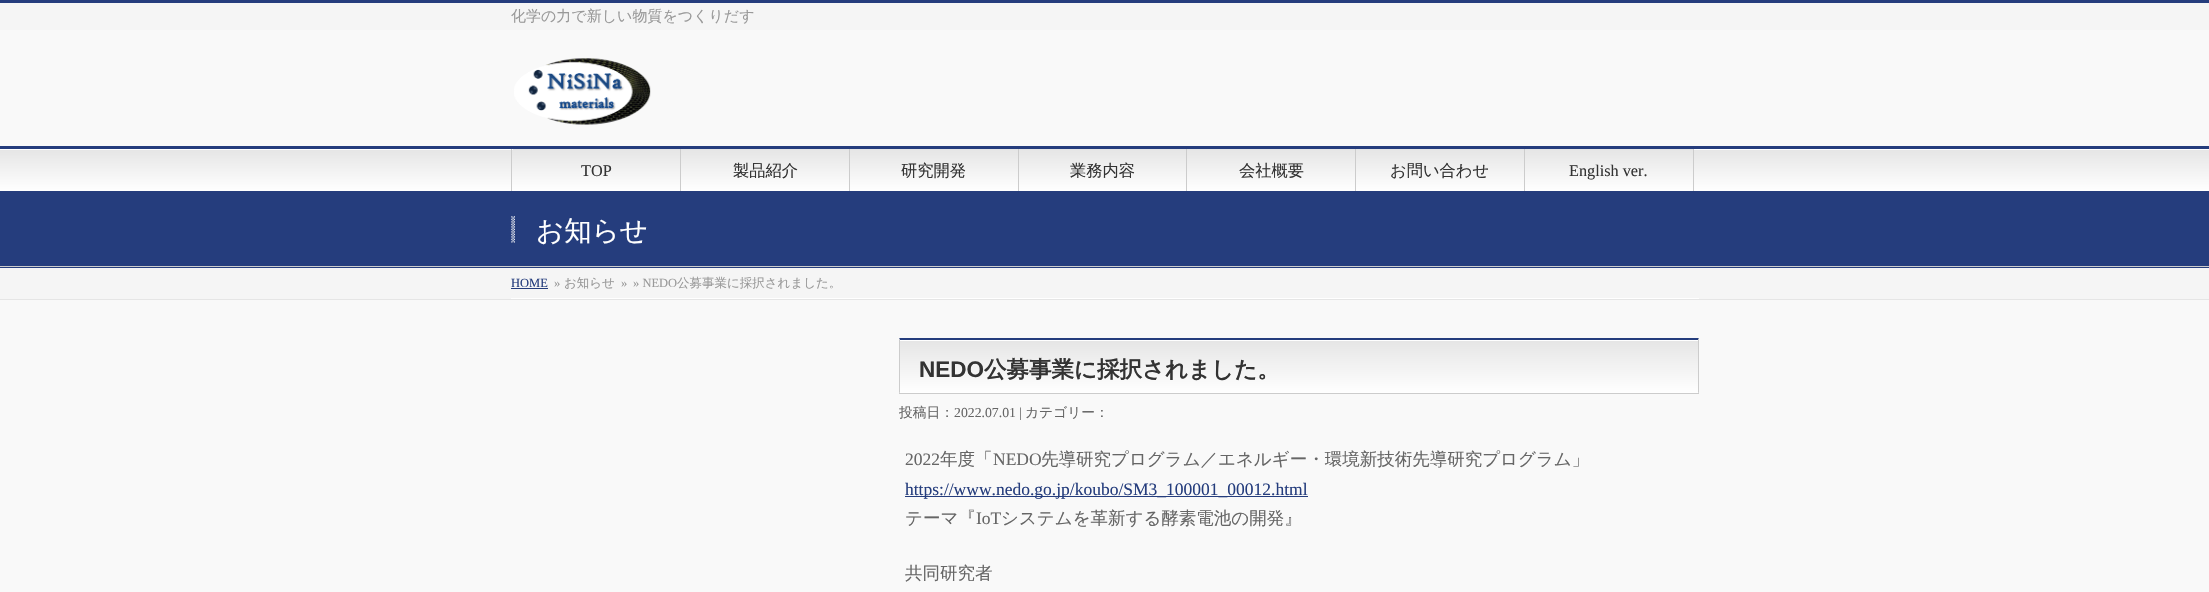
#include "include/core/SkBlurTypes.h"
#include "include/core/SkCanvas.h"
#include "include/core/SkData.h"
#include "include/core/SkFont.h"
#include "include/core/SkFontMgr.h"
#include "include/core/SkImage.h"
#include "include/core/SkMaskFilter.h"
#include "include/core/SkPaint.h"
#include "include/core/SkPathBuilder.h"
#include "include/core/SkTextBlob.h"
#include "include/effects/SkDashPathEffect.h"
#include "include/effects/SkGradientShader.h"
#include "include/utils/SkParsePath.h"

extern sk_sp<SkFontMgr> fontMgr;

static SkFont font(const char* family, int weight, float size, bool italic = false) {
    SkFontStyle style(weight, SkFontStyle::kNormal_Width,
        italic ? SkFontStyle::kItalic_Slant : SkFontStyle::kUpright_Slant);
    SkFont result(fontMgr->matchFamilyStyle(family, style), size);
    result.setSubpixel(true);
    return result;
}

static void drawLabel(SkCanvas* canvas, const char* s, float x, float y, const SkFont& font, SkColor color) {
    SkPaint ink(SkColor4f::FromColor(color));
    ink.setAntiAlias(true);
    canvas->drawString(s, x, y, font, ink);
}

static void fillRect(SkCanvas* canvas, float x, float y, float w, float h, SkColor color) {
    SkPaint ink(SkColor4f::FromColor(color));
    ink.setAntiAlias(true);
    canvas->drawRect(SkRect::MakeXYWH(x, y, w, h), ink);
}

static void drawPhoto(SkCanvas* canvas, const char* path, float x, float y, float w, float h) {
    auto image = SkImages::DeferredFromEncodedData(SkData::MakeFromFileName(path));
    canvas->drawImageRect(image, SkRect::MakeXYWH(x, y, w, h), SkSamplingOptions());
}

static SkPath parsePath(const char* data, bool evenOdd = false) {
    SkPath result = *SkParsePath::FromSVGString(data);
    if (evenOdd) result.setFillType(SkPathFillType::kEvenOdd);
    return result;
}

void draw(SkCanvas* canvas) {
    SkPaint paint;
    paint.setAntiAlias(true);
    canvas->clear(0xFFF9F9F9);
    fillRect(canvas, 0, 3, 2209, 27, 0xFFF5F5F5);
    fillRect(canvas, 0, 0, 2209, 3, 0xFF253D7D);
    SkFont font1 = font("WenQuanYi Zen Hei", 500, 15);
    drawLabel(canvas, "化学の力で新しい物質をつくりだす", 511, 21, font1, 0xFF999999);
    drawPhoto(canvas, "assets/img1.png", 514, 58, 137, 67);
    {
        const SkColor colors[] = {0xFFE5E5E5, 0xFFFFFFFF};
        const float stops[] = {0, 1};
        const SkPoint ends[] = {{0, 149}, {0, 191}};
        paint.setShader(SkGradientShader::MakeLinear(ends, colors, stops, 2, SkTileMode::kClamp));
        paint.setAlpha(255);
    }
    canvas->drawRect(SkRect::MakeXYWH(0, 150, 2209, 41), paint);
    fillRect(canvas, 0, 149, 2209, 1, 0xFFFFFFFF);
    fillRect(canvas, 0, 146, 2209, 3, 0xFF253D7D);
    fillRect(canvas, 511, 149, 1, 42, 0xFFCCCCCC);
    {
        const SkColor colors[] = {0xFFE5E5E5, 0xFFFFFFFF};
        const float stops[] = {0, 1};
        const SkPoint ends[] = {{513, 149}, {513, 191}};
        paint.setShader(SkGradientShader::MakeLinear(ends, colors, stops, 2, SkTileMode::kClamp));
        paint.setAlpha(255);
    }
    canvas->drawRect(SkRect::MakeXYWH(513, 149, 167, 1), paint);
    fillRect(canvas, 680, 149, 1, 42, 0xFFCCCCCC);
    SkFont font2 = font("Liberation Serif", 400, 16.25f);
    drawLabel(canvas, "TOP", 581, 176, font2, 0xFF333333);
    {
        const SkColor colors[] = {0xFFE5E5E5, 0xFFFFFFFF};
        const float stops[] = {0, 1};
        const SkPoint ends[] = {{681, 149}, {681, 191}};
        paint.setShader(SkGradientShader::MakeLinear(ends, colors, stops, 2, SkTileMode::kClamp));
        paint.setAlpha(255);
    }
    canvas->drawRect(SkRect::MakeXYWH(681, 149, 168, 1), paint);
    fillRect(canvas, 849, 149, 1, 42, 0xFFCCCCCC);
    SkFont font3 = font("WenQuanYi Zen Hei", 500, 16.25f);
    drawLabel(canvas, "製品紹介", 733, 176, font3, 0xFF333333);
    {
        const SkColor colors[] = {0xFFE5E5E5, 0xFFFFFFFF};
        const float stops[] = {0, 1};
        const SkPoint ends[] = {{850, 149}, {850, 191}};
        paint.setShader(SkGradientShader::MakeLinear(ends, colors, stops, 2, SkTileMode::kClamp));
        paint.setAlpha(255);
    }
    canvas->drawRect(SkRect::MakeXYWH(850, 149, 168, 1), paint);
    fillRect(canvas, 1018, 149, 1, 42, 0xFFCCCCCC);
    drawLabel(canvas, "研究開発", 901, 176, font3, 0xFF333333);
    {
        const SkColor colors[] = {0xFFE5E5E5, 0xFFFFFFFF};
        const float stops[] = {0, 1};
        const SkPoint ends[] = {{1019, 149}, {1019, 191}};
        paint.setShader(SkGradientShader::MakeLinear(ends, colors, stops, 2, SkTileMode::kClamp));
        paint.setAlpha(255);
    }
    canvas->drawRect(SkRect::MakeXYWH(1019, 149, 169, 1), paint);
    fillRect(canvas, 1186, 149, 1, 42, 0xFFCCCCCC);
    drawLabel(canvas, "業務内容", 1070, 176, font3, 0xFF333333);
    {
        const SkColor colors[] = {0xFFE5E5E5, 0xFFFFFFFF};
        const float stops[] = {0, 1};
        const SkPoint ends[] = {{1188, 149}, {1188, 191}};
        paint.setShader(SkGradientShader::MakeLinear(ends, colors, stops, 2, SkTileMode::kClamp));
        paint.setAlpha(255);
    }
    canvas->drawRect(SkRect::MakeXYWH(1188, 149, 167, 1), paint);
    fillRect(canvas, 1355, 149, 1, 42, 0xFFCCCCCC);
    drawLabel(canvas, "会社概要", 1239, 176, font3, 0xFF333333);
    {
        const SkColor colors[] = {0xFFE5E5E5, 0xFFFFFFFF};
        const float stops[] = {0, 1};
        const SkPoint ends[] = {{1356, 149}, {1356, 191}};
        paint.setShader(SkGradientShader::MakeLinear(ends, colors, stops, 2, SkTileMode::kClamp));
        paint.setAlpha(255);
    }
    canvas->drawRect(SkRect::MakeXYWH(1356, 149, 168, 1), paint);
    fillRect(canvas, 1524, 149, 1, 42, 0xFFCCCCCC);
    drawLabel(canvas, "お問い合わせ", 1390, 176, font3, 0xFF333333);
    {
        const SkColor colors[] = {0xFFE5E5E5, 0xFFFFFFFF};
        const float stops[] = {0, 1};
        const SkPoint ends[] = {{1525, 149}, {1525, 191}};
        paint.setShader(SkGradientShader::MakeLinear(ends, colors, stops, 2, SkTileMode::kClamp));
        paint.setAlpha(255);
    }
    canvas->drawRect(SkRect::MakeXYWH(1525, 149, 168, 1), paint);
    fillRect(canvas, 1693, 149, 1, 42, 0xFFCCCCCC);
    drawLabel(canvas, "English ver.", 1569, 176, font2, 0xFF333333);
    fillRect(canvas, 0, 191, 2209, 77, 0xFF253D7D);
    fillRect(canvas, 0, 266, 2209, 1, 0xFFCCCCCC);
    drawPhoto(canvas, "assets/img2.png", 511, 216, 4, 27);
    SkFont font4 = font("WenQuanYi Zen Hei", 500, 27.5f);
    drawLabel(canvas, "お知らせ", 536, 240, font4, 0xFFFFFFFF);
    fillRect(canvas, 0, 268, 2209, 31, 0xFFF5F5F5);
    fillRect(canvas, 0, 299, 2209, 1, 0xFFE5E5E5);
    fillRect(canvas, 511, 298, 1188, 1, 0xFFFFFFFF);
    SkFont font5 = font("Liberation Serif", 400, 12.5f);
    drawLabel(canvas, "HOME", 511, 287, font5, 0xFF253D7D);
    fillRect(canvas, 511, 288, 37, 1, 0xFF253D7D);
    drawLabel(canvas, "»", 554, 287, font5, 0xFF999999);
    SkFont font6 = font("WenQuanYi Zen Hei", 500, 12.5f);
    drawLabel(canvas, "お知らせ", 564, 287, font6, 0xFF999999);
    drawLabel(canvas, "»", 621, 287, font5, 0xFF999999);
    drawLabel(canvas, "» NEDO", 633, 287, font5, 0xFF999999);
    drawLabel(canvas, "公募事業に採択されました。", 677, 287, font6, 0xFF999999);
    {
        const SkColor colors[] = {0xFFE5E5E5, 0xFFFFFFFF};
        const float stops[] = {0, 1};
        const SkPoint ends[] = {{900, 340}, {900, 393}};
        paint.setShader(SkGradientShader::MakeLinear(ends, colors, stops, 2, SkTileMode::kClamp));
        paint.setAlpha(255);
    }
    canvas->drawRect(SkRect::MakeXYWH(900, 341, 798, 52), paint);
    fillRect(canvas, 900, 340, 798, 1, 0xFFFFFFFF);
    paint.setShader(nullptr);
    paint.setColor(0xFF253D7D);
    canvas->drawPath(parsePath("M899 338H1699L1698 340H900Z"), paint);
    paint.setColor(0xFFCCCCCC);
    canvas->drawPath(parsePath("M1699 338V394L1698 392V340Z"), paint);
    fillRect(canvas, 899, 393, 800, 1, 0xFFCCCCCC);
    canvas->drawPath(parsePath("M899 394V338L900 340V392Z"), paint);
    SkFont font7 = font("Liberation Sans", 700, 22.5f);
    drawLabel(canvas, "NEDO", 919, 377, font7, 0xFF333333);
    SkFont font8 = font("WenQuanYi Zen Hei", 700, 22.5f);
    drawLabel(canvas, "公募事業に採択されました。", 984, 377, font8, 0xFF333333);
    SkFont font9 = font("WenQuanYi Zen Hei", 500, 13.75f);
    drawLabel(canvas, "投稿日：", 899, 417, font9, 0xFF666666);
    SkFont font10 = font("Liberation Serif", 400, 13.75f);
    drawLabel(canvas, "2022.07.01 |", 954, 417, font10, 0xFF666666);
    drawLabel(canvas, "カテゴリー：", 1025, 417, font9, 0xFF666666);
    SkFont font11 = font("Liberation Serif", 400, 17.5f);
    drawLabel(canvas, "2022", 905, 465, font11, 0xFF666666);
    SkFont font12 = font("WenQuanYi Zen Hei", 500, 17.5f);
    drawLabel(canvas, "年度「", 940, 465, font12, 0xFF666666);
    drawLabel(canvas, "NEDO", 993, 465, font11, 0xFF666666);
    drawLabel(canvas, "先導研究プログラム／エネルギー・環境新技術先導研究プログラム」", 1041, 465, font12, 0xFF666666);
    fillRect(canvas, 905, 496, 403, 1, 0xFF253D7D);
    drawLabel(canvas, "https://www.nedo.go.jp/koubo/SM3_100001_00012.html", 905, 495, font11, 0xFF253D7D);
    drawLabel(canvas, "テーマ『", 905, 524, font12, 0xFF666666);
    drawLabel(canvas, "IoT", 976, 524, font11, 0xFF666666);
    drawLabel(canvas, "システムを革新する酵素電池の開発』", 1001, 524, font12, 0xFF666666);
    drawLabel(canvas, "共同研究者", 905, 579, font12, 0xFF666666);
}
